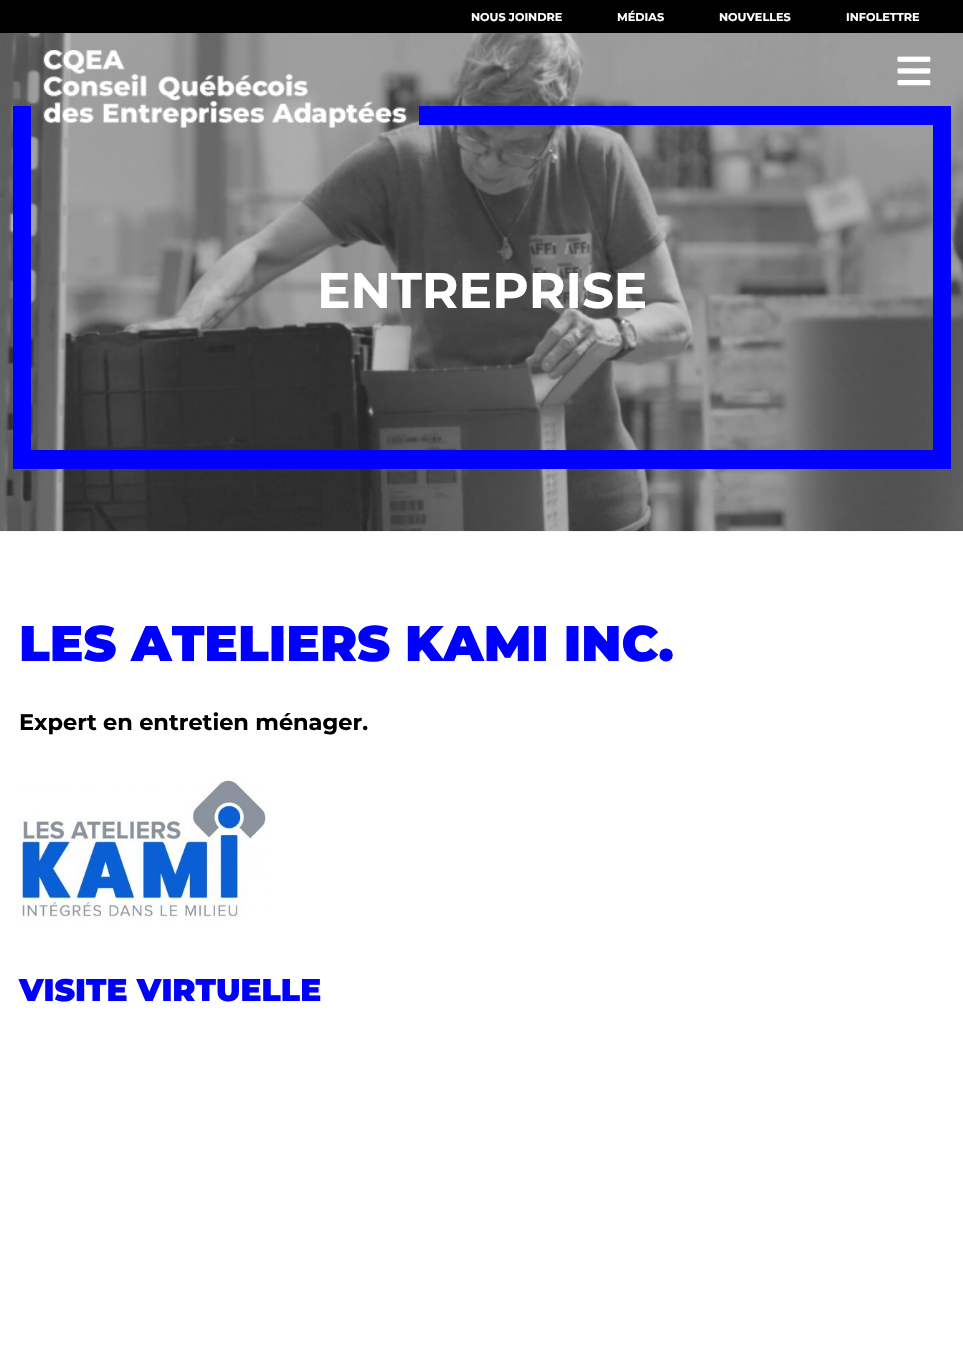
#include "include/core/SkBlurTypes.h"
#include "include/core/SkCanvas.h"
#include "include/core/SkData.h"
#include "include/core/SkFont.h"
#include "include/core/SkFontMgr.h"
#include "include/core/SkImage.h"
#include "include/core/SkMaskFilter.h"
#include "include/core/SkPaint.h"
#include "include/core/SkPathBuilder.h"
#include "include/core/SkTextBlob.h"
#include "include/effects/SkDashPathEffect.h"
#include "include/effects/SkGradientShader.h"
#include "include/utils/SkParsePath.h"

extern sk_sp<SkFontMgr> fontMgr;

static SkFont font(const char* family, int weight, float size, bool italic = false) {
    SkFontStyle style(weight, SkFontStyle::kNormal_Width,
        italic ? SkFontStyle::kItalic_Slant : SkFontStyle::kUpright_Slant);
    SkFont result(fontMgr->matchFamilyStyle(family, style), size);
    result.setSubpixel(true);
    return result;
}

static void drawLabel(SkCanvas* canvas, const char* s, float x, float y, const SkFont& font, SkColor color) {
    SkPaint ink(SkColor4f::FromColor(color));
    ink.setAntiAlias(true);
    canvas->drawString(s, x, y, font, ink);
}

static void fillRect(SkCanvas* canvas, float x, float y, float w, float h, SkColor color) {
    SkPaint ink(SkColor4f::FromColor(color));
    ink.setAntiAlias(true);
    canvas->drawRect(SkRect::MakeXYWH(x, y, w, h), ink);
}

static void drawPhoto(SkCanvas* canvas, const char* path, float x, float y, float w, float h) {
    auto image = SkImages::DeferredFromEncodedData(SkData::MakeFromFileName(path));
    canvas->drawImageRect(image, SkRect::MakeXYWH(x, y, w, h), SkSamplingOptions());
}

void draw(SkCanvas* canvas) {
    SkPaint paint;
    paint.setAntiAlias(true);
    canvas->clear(0xFFFFFFFF);
    fillRect(canvas, 0, 0, 963, 33, 0xFF000000);
    SkFont font1 = font("Montserrat", 700, 11.25f);
    drawLabel(canvas, "NOUS JOINDRE", 471, 21, font1, 0xFFFFFFFF);
    drawLabel(canvas, "MÉDIAS", 617, 21, font1, 0xFFFFFFFF);
    drawLabel(canvas, "NOUVELLES", 719, 21, font1, 0xFFFFFFFF);
    drawLabel(canvas, "INFOLETTRE", 846, 21, font1, 0xFFFFFFFF);
    drawPhoto(canvas, "assets/img3.png", 0, 33, 963, 499);
    drawPhoto(canvas, "assets/img1.png", 43, 50, 364, 78);
    drawPhoto(canvas, "assets/img2.png", 897, 56, 34, 30);
    fillRect(canvas, 933, 106, 18, 344, 0xFF0000FF);
    fillRect(canvas, 31, 450, 920, 19, 0xFF0000FF);
    fillRect(canvas, 13, 106, 18, 363, 0xFF0000FF);
    fillRect(canvas, 419, 106, 514, 19, 0xFF0000FF);
    SkFont font2 = font("Montserrat", 700, 50);
    drawLabel(canvas, "ENTREPRISE", 317, 308, font2, 0xFFFFFFFF);
    SkFont font3 = font("Montserrat", 900, 50);
    drawLabel(canvas, "LES ATELIERS KAMI INC.", 19, 661, font3, 0xFF0000FF);
    SkFont font4 = font("Montserrat", 700, 22.5f);
    drawLabel(canvas, "Expert en entretien ménager.", 19, 730, font4, 0xFF000000);
    drawPhoto(canvas, "assets/img4.png", 19, 777, 248, 144);
    SkFont font5 = font("Montserrat", 900, 31.25f);
    drawLabel(canvas, "VISITE VIRTUELLE", 19, 1001, font5, 0xFF0000FF);
}
